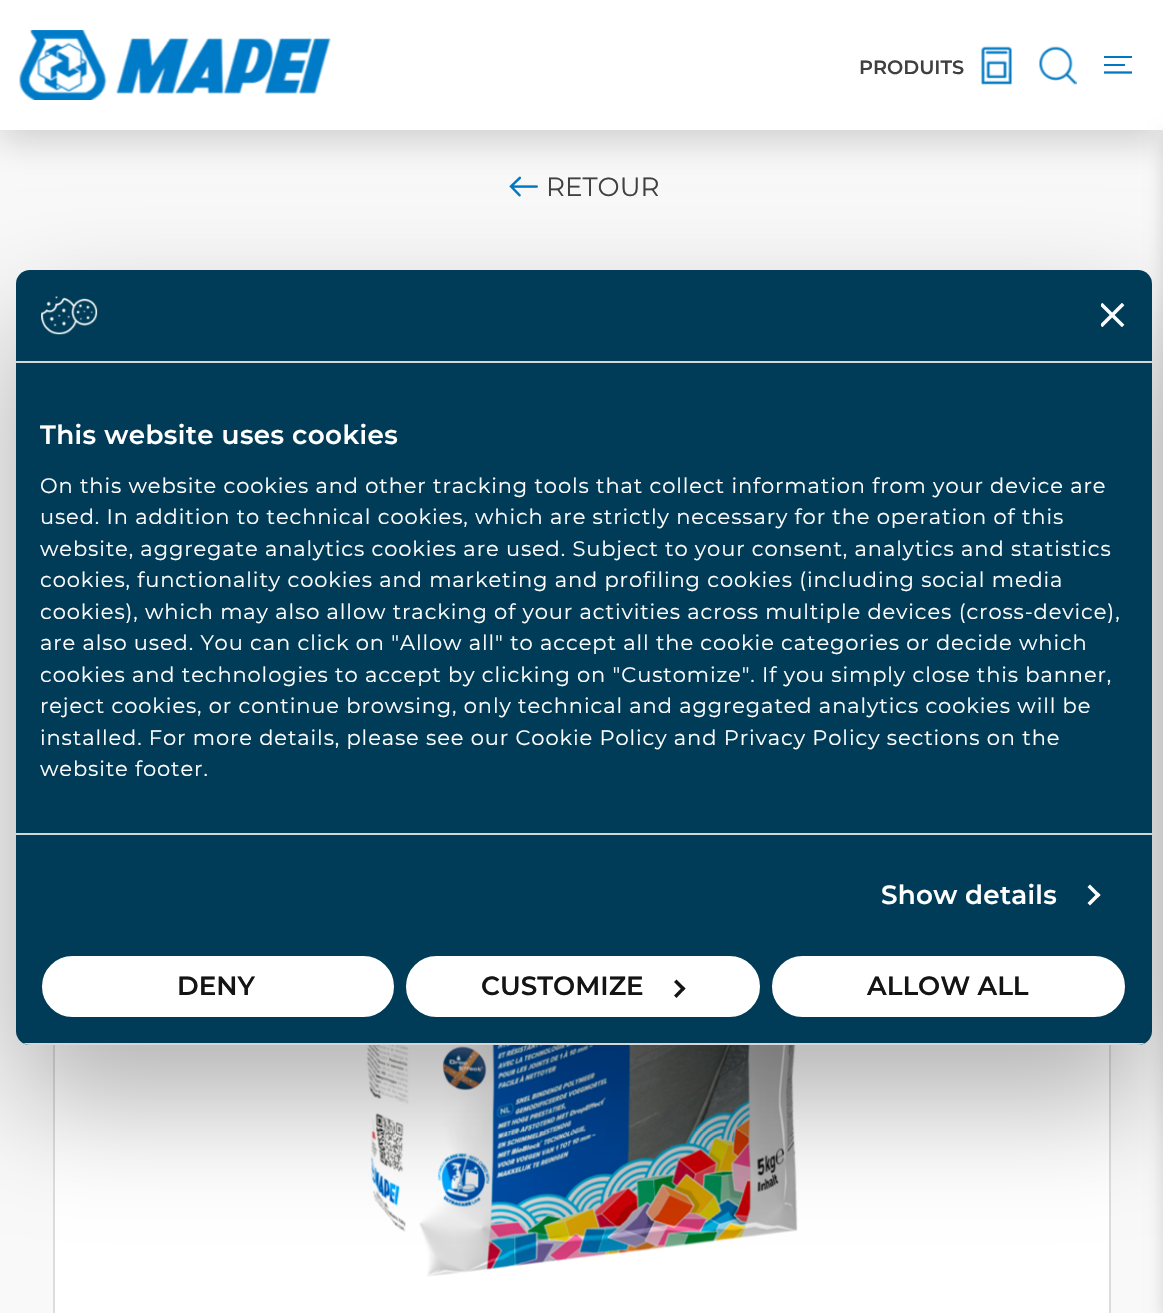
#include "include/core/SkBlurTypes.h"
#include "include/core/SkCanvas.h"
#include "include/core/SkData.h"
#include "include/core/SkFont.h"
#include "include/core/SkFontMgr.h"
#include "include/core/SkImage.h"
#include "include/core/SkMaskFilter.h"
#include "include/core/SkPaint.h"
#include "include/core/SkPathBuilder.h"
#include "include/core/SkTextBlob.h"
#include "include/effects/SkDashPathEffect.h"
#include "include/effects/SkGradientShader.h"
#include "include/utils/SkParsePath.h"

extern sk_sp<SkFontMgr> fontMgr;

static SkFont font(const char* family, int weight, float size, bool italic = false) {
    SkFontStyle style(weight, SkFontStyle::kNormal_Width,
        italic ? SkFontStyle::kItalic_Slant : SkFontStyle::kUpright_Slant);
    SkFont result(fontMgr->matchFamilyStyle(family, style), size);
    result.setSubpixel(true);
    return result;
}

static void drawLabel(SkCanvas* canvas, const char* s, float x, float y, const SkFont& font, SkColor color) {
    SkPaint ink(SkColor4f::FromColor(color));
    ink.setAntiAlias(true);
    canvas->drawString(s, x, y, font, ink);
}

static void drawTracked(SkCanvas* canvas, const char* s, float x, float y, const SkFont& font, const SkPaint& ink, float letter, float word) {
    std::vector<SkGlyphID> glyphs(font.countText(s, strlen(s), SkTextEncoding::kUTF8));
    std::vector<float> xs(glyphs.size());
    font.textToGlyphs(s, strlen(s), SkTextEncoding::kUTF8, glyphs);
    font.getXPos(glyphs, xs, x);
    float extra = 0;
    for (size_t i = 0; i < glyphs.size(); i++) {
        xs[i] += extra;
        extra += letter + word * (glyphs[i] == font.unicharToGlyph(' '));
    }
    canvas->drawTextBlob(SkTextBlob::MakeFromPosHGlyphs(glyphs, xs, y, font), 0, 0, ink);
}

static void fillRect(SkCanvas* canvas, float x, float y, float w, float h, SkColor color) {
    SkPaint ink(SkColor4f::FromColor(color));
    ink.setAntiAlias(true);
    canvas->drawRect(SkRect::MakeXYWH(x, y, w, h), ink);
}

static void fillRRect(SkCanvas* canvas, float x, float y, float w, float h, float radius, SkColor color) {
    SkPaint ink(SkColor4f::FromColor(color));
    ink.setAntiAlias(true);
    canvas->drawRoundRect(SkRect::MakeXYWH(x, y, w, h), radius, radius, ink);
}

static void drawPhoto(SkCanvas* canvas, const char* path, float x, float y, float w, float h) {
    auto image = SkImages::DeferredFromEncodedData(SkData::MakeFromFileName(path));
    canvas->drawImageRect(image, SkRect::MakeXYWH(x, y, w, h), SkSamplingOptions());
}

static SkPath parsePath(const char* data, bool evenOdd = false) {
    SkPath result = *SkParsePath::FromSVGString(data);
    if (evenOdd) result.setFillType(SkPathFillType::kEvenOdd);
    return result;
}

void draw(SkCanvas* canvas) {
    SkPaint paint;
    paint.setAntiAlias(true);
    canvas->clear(0xFFF9F9F9);
    drawPhoto(canvas, "assets/img4.png", 509, 176, 29, 21);
    paint.setColor(0x2E000000);
    paint.setMaskFilter(SkMaskFilter::MakeBlur(kNormal_SkBlurStyle, 17.5f));
    canvas->drawRect(SkRect::MakeXYWH(0, 11, 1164, 129), paint);
    paint.setMaskFilter(nullptr);
    fillRect(canvas, 0, 0, 1163, 130, 0xFFFFFFFF);
    drawPhoto(canvas, "assets/img1.png", 19, 30, 312, 70);
    SkFont font1 = font("Montserrat", 600, 19.25f);
    drawLabel(canvas, "PRODUITS", 859, 74, font1, 0xFF404040);
    drawPhoto(canvas, "assets/img2.png", 981, 46, 31, 39);
    drawPhoto(canvas, "assets/img3.png", 1039, 46, 38, 39);
    fillRect(canvas, 1104, 56, 28, 2, 0xFF0079C2);
    canvas->save();
    canvas->clipRect(SkRect::MakeXYWH(1104, 56, 28, 18));
    paint.setStroke(true);
    paint.setStrokeWidth(2.3f);
    paint.setColor(0xFF0079C2);
    canvas->drawPath(parsePath("M1132.5 72.5H1104"), paint);
    canvas->restore();
    fillRect(canvas, 1104, 64, 21, 2, 0xFF0079C2);
    SkFont font2 = font("Montserrat", 400, 26.25f);
    drawLabel(canvas, "RETOUR", 546, 196, font2, 0xFF404040);
    fillRect(canvas, 55, 1045, 1054, 268, 0xFFFFFFFF);
    paint.setStrokeWidth(2);
    paint.setColor(0xFFDDDDDD);
    canvas->drawRect(SkRect::MakeXYWH(54, 367, 1056, 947), paint);
    drawPhoto(canvas, "assets/img5.png", 366, 1045, 432, 232);
    paint.setStroke(false);
    paint.setColor(0x29000000);
    paint.setMaskFilter(SkMaskFilter::MakeBlur(kNormal_SkBlurStyle, 9));
    canvas->drawRect(SkRect::MakeXYWH(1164, 135, 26, 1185), paint);
    paint.setMaskFilter(nullptr);
    paint.setColor(0x4D000000);
    paint.setMaskFilter(SkMaskFilter::MakeBlur(kNormal_SkBlurStyle, 59.5f));
    canvas->drawRoundRect(SkRect::MakeXYWH(16, 326, 1136, 775), 14, 14, paint);
    paint.setMaskFilter(nullptr);
    fillRRect(canvas, 16, 270, 1136, 775, 14, 0xFF003C57);
    fillRect(canvas, 16, 361, 1136, 2, 0xFFD6D6D6);
    drawPhoto(canvas, "assets/img6.png", 41, 296, 57, 39);
    drawPhoto(canvas, "assets/img7.png", 1101, 303, 24, 24);
    fillRect(canvas, 16, 833, 1136, 2, 0xFFD6D6D6);
    SkFont font3 = font("Montserrat", 600, 26.25f);
    paint.setColor(0xFFFFFFFF);
    drawTracked(canvas, "This website uses cookies", 40, 444, font3, paint, 0.4f, 0);
    SkFont font4 = font("Montserrat", 400, 21);
    drawTracked(canvas, "On this website cookies and other tracking tools that collect information from your device are", 40, 493, font4, paint, 0.88f, 0);
    drawTracked(canvas, "used. In addition to technical cookies, which are strictly necessary for the operation of this", 40, 524, font4, paint, 0.88f, 0);
    drawTracked(canvas, "website, aggregate analytics cookies are used. Subject to your consent, analytics and statistics", 40, 556, font4, paint, 0.88f, 0);
    drawTracked(canvas, "cookies, functionality cookies and marketing and profiling cookies (including social media", 40, 587, font4, paint, 0.88f, 0);
    drawTracked(canvas, "cookies), which may also allow tracking of your activities across multiple devices (cross-device),", 40, 619, font4, paint, 0.88f, 0);
    drawTracked(canvas, "are also used. You can click on \"Allow all\" to accept all the cookie categories or decide which", 40, 650, font4, paint, 0.88f, 0);
    drawTracked(canvas, "cookies and technologies to accept by clicking on \"Customize\". If you simply close this banner,", 40, 682, font4, paint, 0.88f, 0);
    drawTracked(canvas, "reject cookies, or continue browsing, only technical and aggregated analytics cookies will be", 40, 713, font4, paint, 0.88f, 0);
    drawTracked(canvas, "installed. For more details, please see our Cookie Policy and Privacy Policy sections on the", 40, 745, font4, paint, 0.88f, 0);
    drawTracked(canvas, "website footer.", 40, 776, font4, paint, 0.88f, 0);
    drawTracked(canvas, "Show details", 881, 904, font3, paint, 0.25f, 0);
    canvas->drawPath(parsePath("M1090 884.5L1100.5 895L1098 897.5L1087.5 887Z"), paint);
    canvas->drawPath(parsePath("M1098 892.5L1100.5 895L1090 905.5L1087.5 903Z"), paint);
    canvas->save();
    canvas->clipPath(parsePath("M30 270H1138C1145.5 270 1152 276.5 1152 284V1031C1152 1038.5 1145.5 1045 1138 1045H30C22.5 1045 16 1038.5 16 1031V284C16 276.5 22.5 270 30 270Z"), true);
    fillRect(canvas, 16, 1043, 1136, 2, 0xFFD6D6D6);
    canvas->restore();
    canvas->drawRoundRect(SkRect::MakeXYWH(44, 958, 348, 57), 28.5f, 28.5f, paint);
    paint.setStroke(true);
    paint.setStrokeWidth(4);
    canvas->drawRoundRect(SkRect::MakeXYWH(44, 958, 348, 57), 28.5f, 28.5f, paint);
    drawLabel(canvas, "DENY", 177, 995, font3, 0xFF141414);
    paint.setStroke(false);
    canvas->drawRoundRect(SkRect::MakeXYWH(408, 958, 350, 57), 28.5f, 28.5f, paint);
    paint.setStroke(true);
    canvas->drawRoundRect(SkRect::MakeXYWH(408, 958, 350, 57), 28.5f, 28.5f, paint);
    drawLabel(canvas, "CUSTOMIZE", 481, 995, font3, 0xFF141414);
    paint.setStroke(false);
    paint.setColor(0xFF141414);
    canvas->drawPath(parsePath("M676.5 979.5L685.5 988.5L683 991L674 982Z"), paint);
    canvas->drawPath(parsePath("M683 986.5L685.5 988.5L676.5 998L674 995.5Z"), paint);
    paint.setColor(0xFFFFFFFF);
    canvas->drawRoundRect(SkRect::MakeXYWH(774, 958, 349, 57), 28.5f, 28.5f, paint);
    paint.setStroke(true);
    canvas->drawRoundRect(SkRect::MakeXYWH(774, 958, 349, 57), 28.5f, 28.5f, paint);
    drawLabel(canvas, "ALLOW ALL", 867, 995, font3, 0xFF141414);
}
